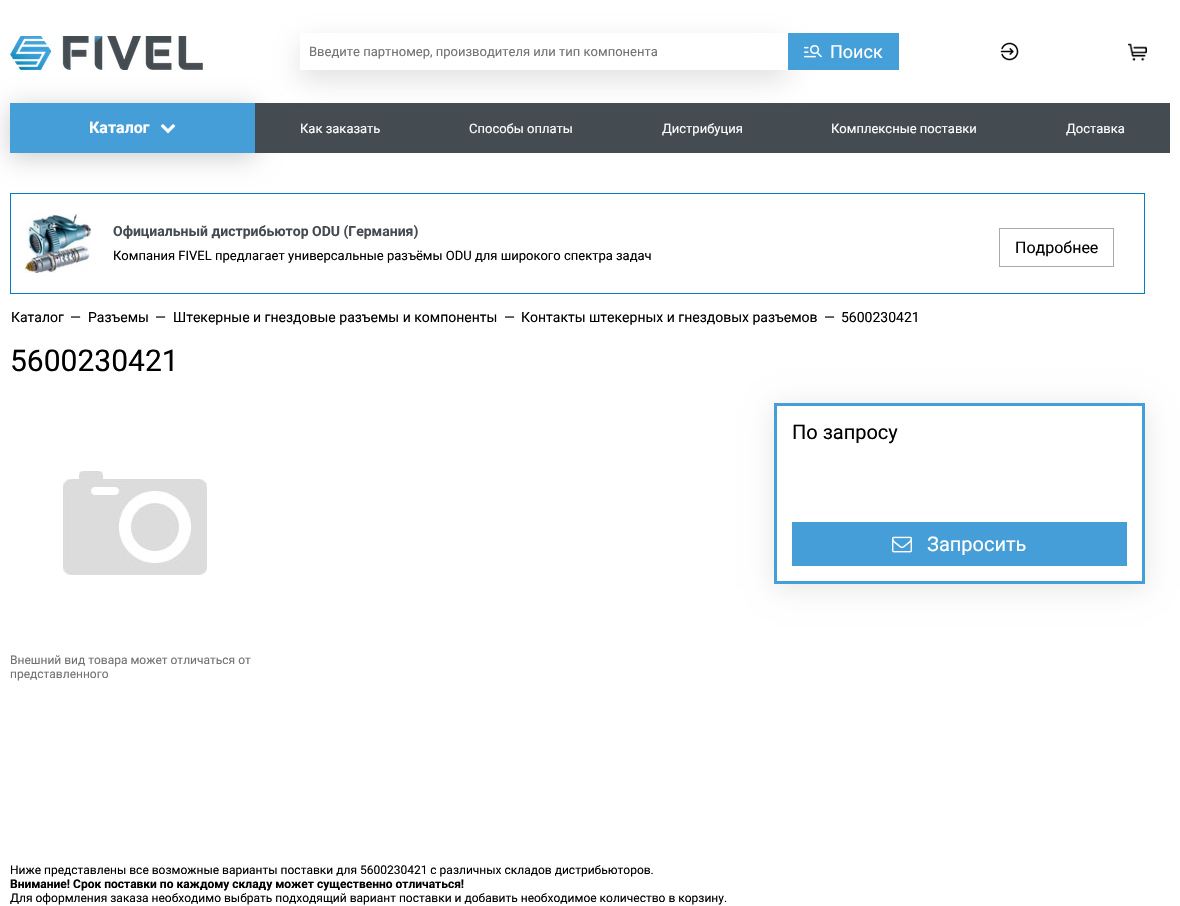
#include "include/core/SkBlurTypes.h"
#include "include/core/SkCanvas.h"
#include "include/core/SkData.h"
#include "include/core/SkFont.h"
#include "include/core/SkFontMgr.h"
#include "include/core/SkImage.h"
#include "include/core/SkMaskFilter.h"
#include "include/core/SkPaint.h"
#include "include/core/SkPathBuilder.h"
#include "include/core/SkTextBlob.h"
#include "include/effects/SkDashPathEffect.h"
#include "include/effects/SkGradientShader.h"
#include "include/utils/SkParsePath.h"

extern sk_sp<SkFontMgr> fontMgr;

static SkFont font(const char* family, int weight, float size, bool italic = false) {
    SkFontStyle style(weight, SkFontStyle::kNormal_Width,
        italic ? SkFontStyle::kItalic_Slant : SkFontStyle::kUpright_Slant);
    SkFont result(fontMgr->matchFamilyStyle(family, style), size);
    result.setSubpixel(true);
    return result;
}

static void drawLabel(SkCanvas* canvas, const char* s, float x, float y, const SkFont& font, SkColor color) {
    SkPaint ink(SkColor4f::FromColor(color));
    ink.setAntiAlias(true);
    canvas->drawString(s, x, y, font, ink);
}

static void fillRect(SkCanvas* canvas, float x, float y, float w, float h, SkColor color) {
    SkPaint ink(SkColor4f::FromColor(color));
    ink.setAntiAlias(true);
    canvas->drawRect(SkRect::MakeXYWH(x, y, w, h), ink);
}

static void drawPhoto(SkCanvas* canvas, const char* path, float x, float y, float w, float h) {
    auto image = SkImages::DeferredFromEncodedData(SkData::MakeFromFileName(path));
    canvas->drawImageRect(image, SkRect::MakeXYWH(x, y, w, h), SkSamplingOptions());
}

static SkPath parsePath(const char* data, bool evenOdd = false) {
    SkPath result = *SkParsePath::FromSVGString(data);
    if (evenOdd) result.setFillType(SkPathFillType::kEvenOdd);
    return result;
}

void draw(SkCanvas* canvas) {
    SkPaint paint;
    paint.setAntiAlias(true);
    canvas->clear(0xFFFFFFFF);
    drawPhoto(canvas, "assets/img1.png", 10, 36, 193, 34);
    paint.setColor(0x33000000);
    paint.setMaskFilter(SkMaskFilter::MakeBlur(kNormal_SkBlurStyle, 13));
    canvas->drawRect(SkRect::MakeXYWH(10, 107, 245, 50), paint);
    paint.setMaskFilter(nullptr);
    fillRect(canvas, 255, 103, 915, 50, 0xFF444C51);
    canvas->save();
    canvas->clipPath(parsePath("M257 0H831V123H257ZM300 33H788V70H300Z", true), true);
    paint.setColor(0x5EAAAAAA);
    paint.setMaskFilter(SkMaskFilter::MakeBlur(kNormal_SkBlurStyle, 14));
    canvas->drawRect(SkRect::MakeXYWH(300, 43, 488, 37), paint);
    paint.setMaskFilter(nullptr);
    canvas->restore();
    SkFont font1 = font("Roboto", 400, 13);
    drawLabel(canvas, "Введите партномер, производителя или тип компонента", 309, 56, font1, 0xFF727272);
    fillRect(canvas, 788, 33, 111, 37, 0xFF459FD8);
    drawPhoto(canvas, "assets/img2.png", 804, 45, 18, 13);
    SkFont font2 = font("Roboto", 400, 18);
    drawLabel(canvas, "Поиск", 830, 58, font2, 0xFFFFFFFF);
    drawPhoto(canvas, "assets/img3.png", 1000, 42, 19, 19);
    drawPhoto(canvas, "assets/img4.png", 1128, 43, 19, 18);
    fillRect(canvas, 10, 103, 245, 50, 0xFF459ED7);
    SkFont font3 = font("Roboto", 700, 16);
    drawLabel(canvas, "Каталог", 89, 133, font3, 0xFFFFFFFF);
    drawPhoto(canvas, "assets/img5.png", 160, 124, 16, 10);
    drawLabel(canvas, "Как заказать", 300, 133, font1, 0xFFFFFFFF);
    drawLabel(canvas, "Способы оплаты", 469, 133, font1, 0xFFFFFFFF);
    drawLabel(canvas, "Дистрибуция", 662, 133, font1, 0xFFFFFFFF);
    drawLabel(canvas, "Комплексные поставки", 831, 133, font1, 0xFFFFFFFF);
    drawLabel(canvas, "Доставка", 1066, 133, font1, 0xFFFFFFFF);
    paint.setStroke(true);
    paint.setStrokeWidth(1);
    paint.setColor(0xFF0080C0);
    canvas->drawRect(SkRect::MakeXYWH(10.5f, 193.5f, 1134, 100), paint);
    drawPhoto(canvas, "assets/img6.png", 25, 214, 66, 59);
    SkFont font4 = font("Roboto", 700, 14);
    drawLabel(canvas, "Официальный дистрибьютор ODU (Германия)", 113, 236, font4, 0xFF444C51);
    drawLabel(canvas, "Компания FIVEL предлагает универсальные разъёмы ODU для широкого спектра задач", 113, 260, font1, 0xFF000000);
    paint.setColor(0xFFAAAAAA);
    canvas->drawRect(SkRect::MakeXYWH(999.5f, 228.5f, 114, 38), paint);
    SkFont font5 = font("Roboto", 400, 16);
    drawLabel(canvas, "Подробнее", 1015, 253, font5, 0xFF000000);
    SkFont font6 = font("Roboto", 400, 14);
    drawLabel(canvas, "Каталог", 11, 322, font6, 0xFF000000);
    drawLabel(canvas, "—", 70, 322, font6, 0xFF000000);
    drawLabel(canvas, "Разъемы", 88, 322, font6, 0xFF000000);
    drawLabel(canvas, "—", 155, 322, font6, 0xFF000000);
    drawLabel(canvas, "Штекерные и гнездовые разъемы и компоненты", 173, 322, font6, 0xFF000000);
    drawLabel(canvas, "—", 504, 322, font6, 0xFF000000);
    drawLabel(canvas, "Контакты штекерных и гнездовых разъемов", 521, 322, font6, 0xFF000000);
    drawLabel(canvas, "—", 824, 322, font6, 0xFF000000);
    drawLabel(canvas, "5600230421", 841, 322, font6, 0xFF000000);
    SkFont font7 = font("Roboto", 400, 30);
    drawLabel(canvas, "5600230421", 10, 371, font7, 0xFF000000);
    canvas->save();
    canvas->clipPath(parsePath("M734 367H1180V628H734ZM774 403H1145V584H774Z", true), true);
    paint.setStroke(false);
    paint.setColor(0x1A000000);
    paint.setMaskFilter(SkMaskFilter::MakeBlur(kNormal_SkBlurStyle, 13));
    canvas->drawRect(SkRect::MakeXYWH(774, 407, 371, 181), paint);
    paint.setMaskFilter(nullptr);
    canvas->restore();
    paint.setStroke(true);
    paint.setStrokeWidth(3);
    paint.setColor(0xFF459ED7);
    canvas->drawRect(SkRect::MakeXYWH(775.5f, 404.5f, 368, 178), paint);
    SkFont font8 = font("Roboto", 400, 20);
    drawLabel(canvas, "По запросу", 792, 439, font8, 0xFF000000);
    fillRect(canvas, 792, 522, 335, 44, 0xFF459ED7);
    drawPhoto(canvas, "assets/img7.png", 892, 536, 20, 17);
    drawLabel(canvas, "Запросить", 927, 551, font8, 0xFFFFFFFF);
    drawPhoto(canvas, "assets/img8.png", 63, 471, 144, 104);
    SkFont font9 = font("Roboto", 400, 12);
    drawLabel(canvas, "Внешний вид товара может отличаться от", 10, 664, font9, 0xFF727272);
    drawLabel(canvas, "представленного", 10, 678, font9, 0xFF727272);
    drawLabel(canvas, "Ниже представлены все возможные варианты поставки для 5600230421 с различных складов дистрибьюторов.", 10, 874, font9, 0xFF000000);
    SkFont font10 = font("Roboto", 700, 12);
    drawLabel(canvas, "Внимание! Срок поставки по каждому складу может существенно отличаться!", 10, 888, font10, 0xFF000000);
    drawLabel(canvas, "Для оформления заказа необходимо выбрать подходящий вариант поставки и добавить необходимое количество в корзину.", 10, 902, font9, 0xFF000000);
}
